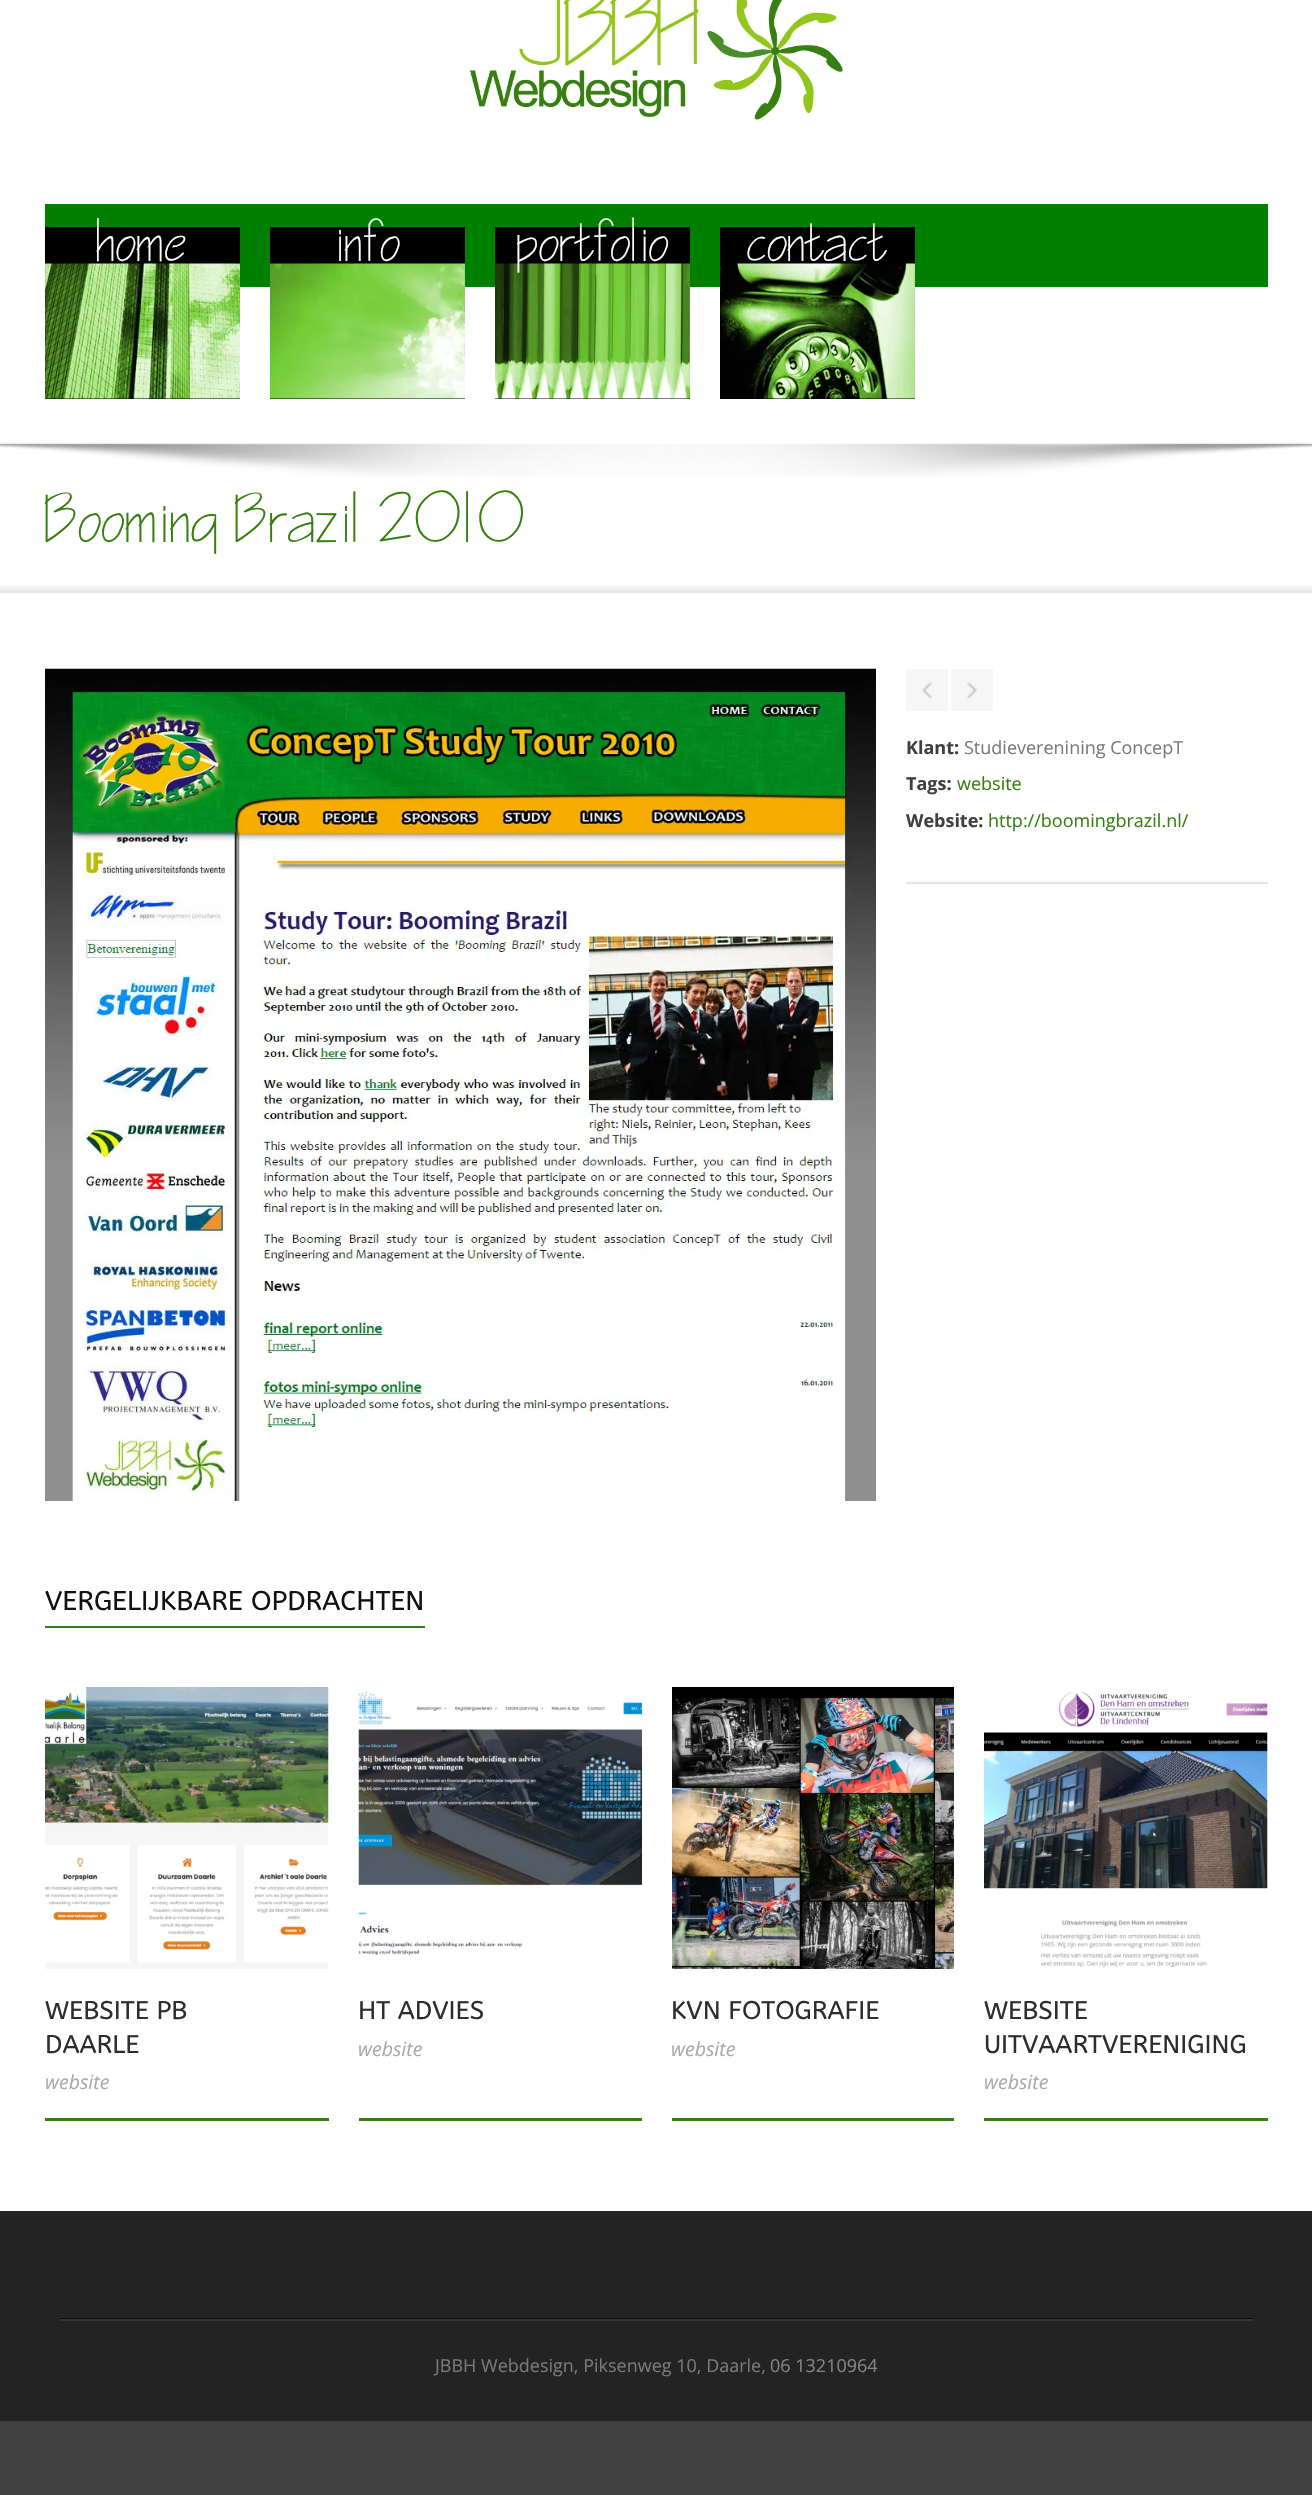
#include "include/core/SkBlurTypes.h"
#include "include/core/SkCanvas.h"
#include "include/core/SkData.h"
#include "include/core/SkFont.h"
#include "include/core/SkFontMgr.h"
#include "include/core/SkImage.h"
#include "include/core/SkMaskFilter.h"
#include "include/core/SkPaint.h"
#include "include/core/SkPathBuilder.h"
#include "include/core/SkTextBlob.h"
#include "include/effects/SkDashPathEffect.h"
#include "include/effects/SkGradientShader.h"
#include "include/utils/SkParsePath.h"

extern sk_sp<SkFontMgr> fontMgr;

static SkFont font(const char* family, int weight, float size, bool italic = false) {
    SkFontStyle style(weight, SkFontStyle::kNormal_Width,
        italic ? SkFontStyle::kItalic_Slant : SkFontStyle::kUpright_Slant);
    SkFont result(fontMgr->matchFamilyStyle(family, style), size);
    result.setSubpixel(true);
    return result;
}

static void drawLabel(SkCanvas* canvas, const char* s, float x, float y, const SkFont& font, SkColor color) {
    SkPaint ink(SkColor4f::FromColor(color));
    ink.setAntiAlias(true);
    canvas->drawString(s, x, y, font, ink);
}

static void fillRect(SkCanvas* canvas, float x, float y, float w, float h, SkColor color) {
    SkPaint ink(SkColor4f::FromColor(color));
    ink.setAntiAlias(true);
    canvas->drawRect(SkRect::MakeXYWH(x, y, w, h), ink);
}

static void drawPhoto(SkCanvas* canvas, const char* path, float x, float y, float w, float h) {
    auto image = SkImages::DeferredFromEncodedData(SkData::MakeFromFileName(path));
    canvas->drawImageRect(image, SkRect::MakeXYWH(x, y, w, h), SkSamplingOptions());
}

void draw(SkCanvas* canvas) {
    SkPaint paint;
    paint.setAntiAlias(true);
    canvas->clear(0xFF404040);
    fillRect(canvas, 0, 0, 1312, 2211, 0xFFFFFFFF);
    drawPhoto(canvas, "assets/img1.png", 469, 0, 374, 120);
    fillRect(canvas, 45, 204, 1223, 83, 0xFF008000);
    fillRect(canvas, 45, 227, 195, 172, 0xFF000000);
    drawPhoto(canvas, "assets/img2.png", 45, 263, 195, 136);
    SkFont font1 = font("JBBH", 400, 54);
    drawLabel(canvas, "home", 96, 261, font1, 0xFFFFFFFF);
    fillRect(canvas, 270, 227, 195, 172, 0xFF000000);
    drawPhoto(canvas, "assets/img3.png", 270, 263, 195, 136);
    drawLabel(canvas, "info", 335, 261, font1, 0xFFFFFFFF);
    fillRect(canvas, 495, 227, 195, 172, 0xFF000000);
    drawPhoto(canvas, "assets/img4.png", 495, 263, 195, 136);
    drawLabel(canvas, "portfolio", 516, 261, font1, 0xFFFFFFFF);
    fillRect(canvas, 720, 227, 195, 172, 0xFF000000);
    drawPhoto(canvas, "assets/img5.png", 720, 263, 195, 136);
    drawLabel(canvas, "contact", 747, 261, font1, 0xFFFFFFFF);
    drawPhoto(canvas, "assets/img6.png", 0, 443, 1312, 34);
    SkFont font2 = font("JBBH", 400, 63);
    drawLabel(canvas, "Booming", 45, 542, font2, 0xFF368011);
    drawLabel(canvas, "Brazil", 235, 542, font2, 0xFF368011);
    drawLabel(canvas, "2010", 378, 542, font2, 0xFF368011);
    drawPhoto(canvas, "assets/img7.png", 0, 585, 1312, 9);
    drawPhoto(canvas, "assets/img8.png", 45, 668, 831, 833);
    fillRect(canvas, 906, 882, 362, 2, 0xFFE6E6E6);
    fillRect(canvas, 906, 669, 42, 42, 0xFFF6F6F6);
    drawPhoto(canvas, "assets/img9.png", 922, 682, 10, 17);
    fillRect(canvas, 951, 669, 42, 42, 0xFFF6F6F6);
    drawPhoto(canvas, "assets/img10.png", 967, 682, 10, 17);
    SkFont font3 = font("Open Sans", 700, 18);
    drawLabel(canvas, "Klant:", 906, 754, font3, 0xFF404040);
    SkFont font4 = font("Open Sans", 400, 18);
    drawLabel(canvas, "Studieverenining ConcepT", 964, 754, font4, 0xFF7A7A7A);
    drawLabel(canvas, "Tags:", 906, 790, font3, 0xFF404040);
    drawLabel(canvas, "website", 957, 790, font4, 0xFF368011);
    drawLabel(canvas, "Website:", 906, 827, font3, 0xFF404040);
    drawLabel(canvas, "http://boomingbrazil.nl/", 988, 827, font4, 0xFF368011);
    fillRect(canvas, 45, 1626, 380, 2, 0xFF368011);
    SkFont font5 = font("ABeeZee", 400, 27);
    drawLabel(canvas, "VERGELIJKBARE OPDRACHTEN", 45, 1610, font5, 0xFF111111);
    drawPhoto(canvas, "assets/img11.png", 45, 1687, 284, 282);
    SkFont font6 = font("ABeeZee", 400, 25.5f);
    drawLabel(canvas, "WEBSITE PB", 45, 2019, font6, 0xFF2D2D2D);
    drawLabel(canvas, "DAARLE", 45, 2053, font6, 0xFF2D2D2D);
    SkFont font7 = font("Open Sans", 400, 19.5f, true);
    drawLabel(canvas, "website", 45, 2089, font7, 0xFFAAAAAA);
    fillRect(canvas, 45, 2118, 284, 3, 0xFF368011);
    drawPhoto(canvas, "assets/img12.png", 358, 1689, 284, 269);
    drawLabel(canvas, "HT ADVIES", 358, 2019, font6, 0xFF2D2D2D);
    drawLabel(canvas, "website", 358, 2056, font7, 0xFFAAAAAA);
    fillRect(canvas, 359, 2118, 283, 3, 0xFF368011);
    drawPhoto(canvas, "assets/img13.png", 672, 1687, 282, 282);
    drawLabel(canvas, "KVN FOTOGRAFIE", 671, 2019, font6, 0xFF2D2D2D);
    drawLabel(canvas, "website", 671, 2056, font7, 0xFFAAAAAA);
    fillRect(canvas, 672, 2118, 282, 3, 0xFF368011);
    drawPhoto(canvas, "assets/img14.png", 984, 1692, 284, 276);
    drawLabel(canvas, "WEBSITE", 984, 2019, font6, 0xFF2D2D2D);
    drawLabel(canvas, "UITVAARTVERENIGING", 984, 2053, font6, 0xFF2D2D2D);
    drawLabel(canvas, "website", 984, 2089, font7, 0xFFAAAAAA);
    fillRect(canvas, 984, 2118, 284, 3, 0xFF368011);
    fillRect(canvas, 0, 2211, 1312, 210, 0xFF232323);
    fillRect(canvas, 60, 2318, 1193, 1, 0xFF0A0A0A);
    fillRect(canvas, 60, 2319, 1193, 2, 0xFF353535);
    drawLabel(canvas, "JBBH Webdesign, Piksenweg 10, Daarle,", 435, 2372, font4, 0xFF7A7A7A);
    drawLabel(canvas, "06 13210964", 770, 2372, font4, 0xFF848484);
}
